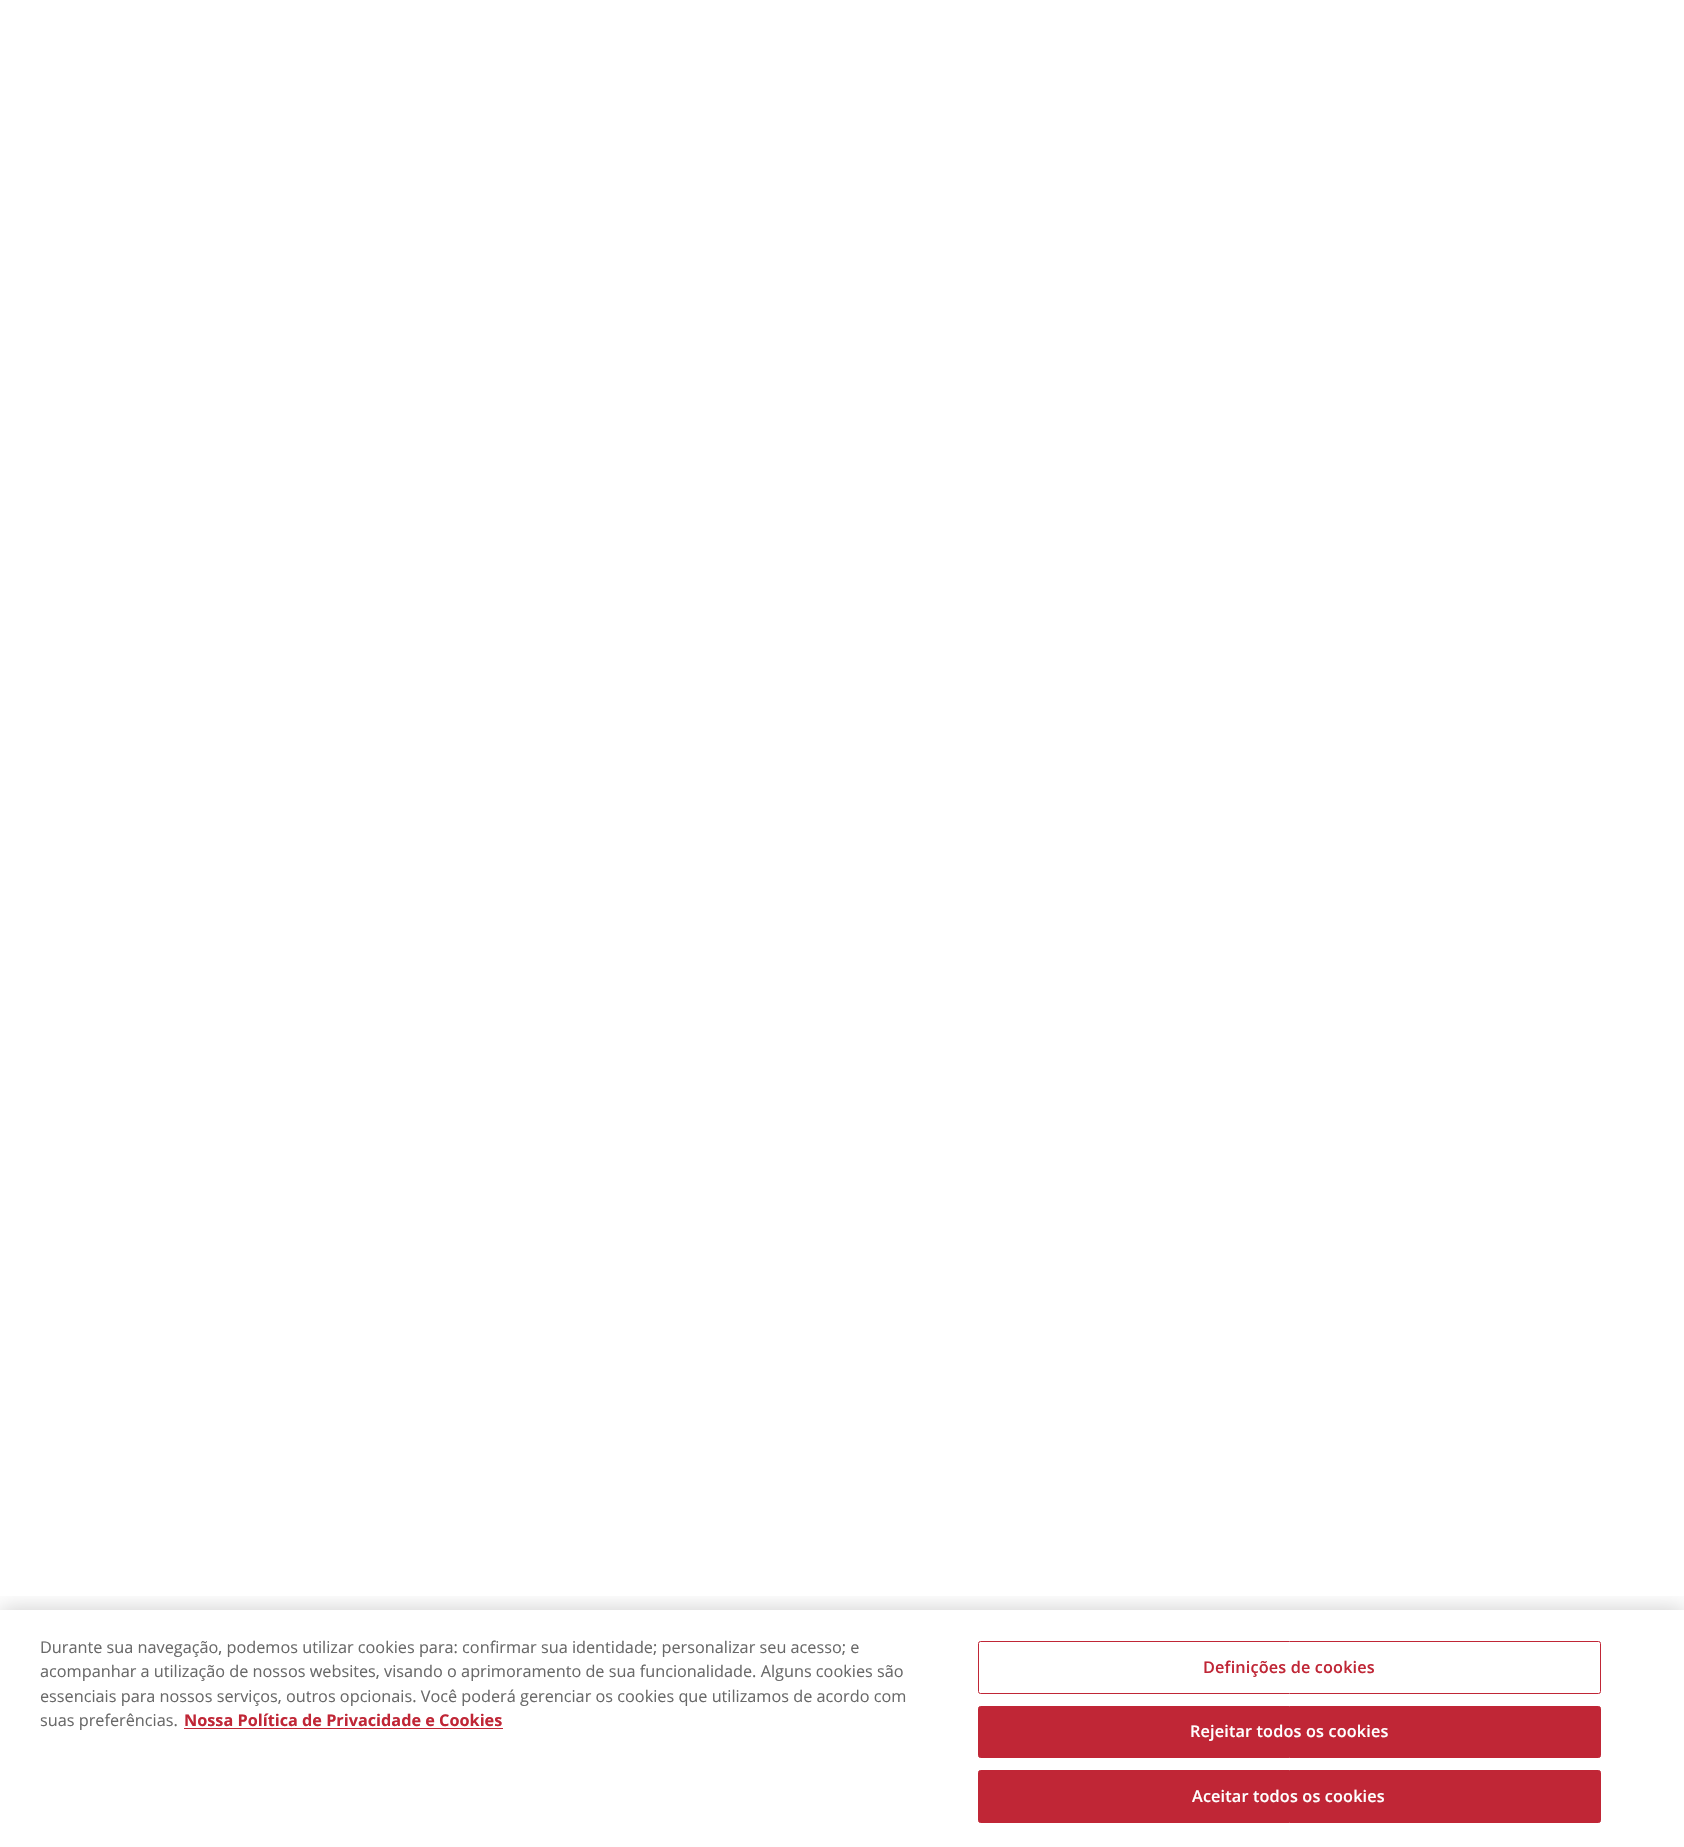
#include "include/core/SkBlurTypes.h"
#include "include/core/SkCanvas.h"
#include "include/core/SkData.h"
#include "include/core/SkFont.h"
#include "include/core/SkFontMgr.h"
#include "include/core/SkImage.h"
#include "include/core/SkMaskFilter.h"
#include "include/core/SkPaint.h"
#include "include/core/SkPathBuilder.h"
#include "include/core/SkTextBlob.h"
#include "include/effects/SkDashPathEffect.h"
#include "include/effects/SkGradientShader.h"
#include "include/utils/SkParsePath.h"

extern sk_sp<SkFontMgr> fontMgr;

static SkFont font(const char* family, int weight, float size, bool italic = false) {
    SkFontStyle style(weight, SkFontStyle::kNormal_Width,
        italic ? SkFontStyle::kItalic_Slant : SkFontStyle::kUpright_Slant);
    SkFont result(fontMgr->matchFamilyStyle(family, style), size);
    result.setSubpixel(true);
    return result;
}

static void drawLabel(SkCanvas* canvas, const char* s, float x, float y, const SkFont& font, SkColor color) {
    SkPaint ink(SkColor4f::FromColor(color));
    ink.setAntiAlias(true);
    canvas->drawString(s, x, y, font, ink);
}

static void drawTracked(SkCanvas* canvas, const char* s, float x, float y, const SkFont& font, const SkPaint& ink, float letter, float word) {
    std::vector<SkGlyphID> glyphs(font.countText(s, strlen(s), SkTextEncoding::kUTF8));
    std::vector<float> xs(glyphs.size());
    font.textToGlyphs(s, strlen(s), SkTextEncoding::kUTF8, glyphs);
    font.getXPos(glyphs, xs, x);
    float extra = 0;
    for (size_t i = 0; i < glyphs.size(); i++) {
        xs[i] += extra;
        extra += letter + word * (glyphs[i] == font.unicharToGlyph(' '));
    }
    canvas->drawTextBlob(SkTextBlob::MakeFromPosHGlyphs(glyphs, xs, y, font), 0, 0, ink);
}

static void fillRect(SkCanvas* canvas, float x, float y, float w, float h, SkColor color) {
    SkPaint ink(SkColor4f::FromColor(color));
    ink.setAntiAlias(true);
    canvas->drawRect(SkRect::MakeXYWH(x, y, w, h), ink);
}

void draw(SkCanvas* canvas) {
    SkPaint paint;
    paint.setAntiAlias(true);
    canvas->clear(0xFFFFFFFF);
    canvas->save();
    canvas->clipRect(SkRect::MakeXYWH(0, 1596, 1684, 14));
    paint.setColor(0x33000000);
    paint.setMaskFilter(SkMaskFilter::MakeBlur(kNormal_SkBlurStyle, 11));
    canvas->drawRect(SkRect::MakeXYWH(0, 1610, 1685, 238), paint);
    paint.setMaskFilter(nullptr);
    canvas->restore();
    SkFont font1 = font("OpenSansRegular", 400, 16.25f);
    drawLabel(canvas, "Durante sua navegação, podemos utilizar cookies para: confirmar sua identidade; personalizar seu acesso; e", 40, 1653, font1, 0xFF696969);
    drawLabel(canvas, "acompanhar a utilização de nossos websites, visando o aprimoramento de sua funcionalidade. Alguns cookies são", 40, 1677, font1, 0xFF696969);
    drawLabel(canvas, "essenciais para nossos serviços, outros opcionais. Você poderá gerenciar os cookies que utilizamos de acordo com", 40, 1702, font1, 0xFF696969);
    drawLabel(canvas, "suas preferências.", 40, 1726, font1, 0xFF696969);
    SkFont font2 = font("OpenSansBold", 700, 16.25f);
    drawLabel(canvas, "Nossa Política de Privacidade e Cookies", 184, 1726, font2, 0xFFC02636);
    fillRect(canvas, 184, 1728, 319, 1, 0xFFC02636);
    paint.setStroke(true);
    paint.setStrokeWidth(1);
    paint.setColor(0xFFC02636);
    canvas->drawRoundRect(SkRect::MakeXYWH(978.5f, 1641.5f, 622, 52), 2, 2, paint);
    SkFont font3 = font("Open Sans", 600, 16.25f);
    paint.setStroke(false);
    drawTracked(canvas, "Definições de cookies", 1203, 1673, font3, paint, 0.15f, 0);
    canvas->drawRoundRect(SkRect::MakeXYWH(978.5f, 1706.5f, 622, 51), 2, 2, paint);
    paint.setStroke(true);
    canvas->drawRoundRect(SkRect::MakeXYWH(978.5f, 1706.5f, 622, 51), 2, 2, paint);
    paint.setStroke(false);
    paint.setColor(0xFFFFFFFF);
    drawTracked(canvas, "Rejeitar todos os cookies", 1190, 1737, font3, paint, 0.15f, 0);
    paint.setColor(0xFFC02636);
    canvas->drawRoundRect(SkRect::MakeXYWH(978.5f, 1770.5f, 622, 52), 2, 2, paint);
    paint.setStroke(true);
    canvas->drawRoundRect(SkRect::MakeXYWH(978.5f, 1770.5f, 622, 52), 2, 2, paint);
    paint.setStroke(false);
    paint.setColor(0xFFFFFFFF);
    drawTracked(canvas, "Aceitar todos os cookies", 1192, 1802, font3, paint, 0.15f, 0);
}
